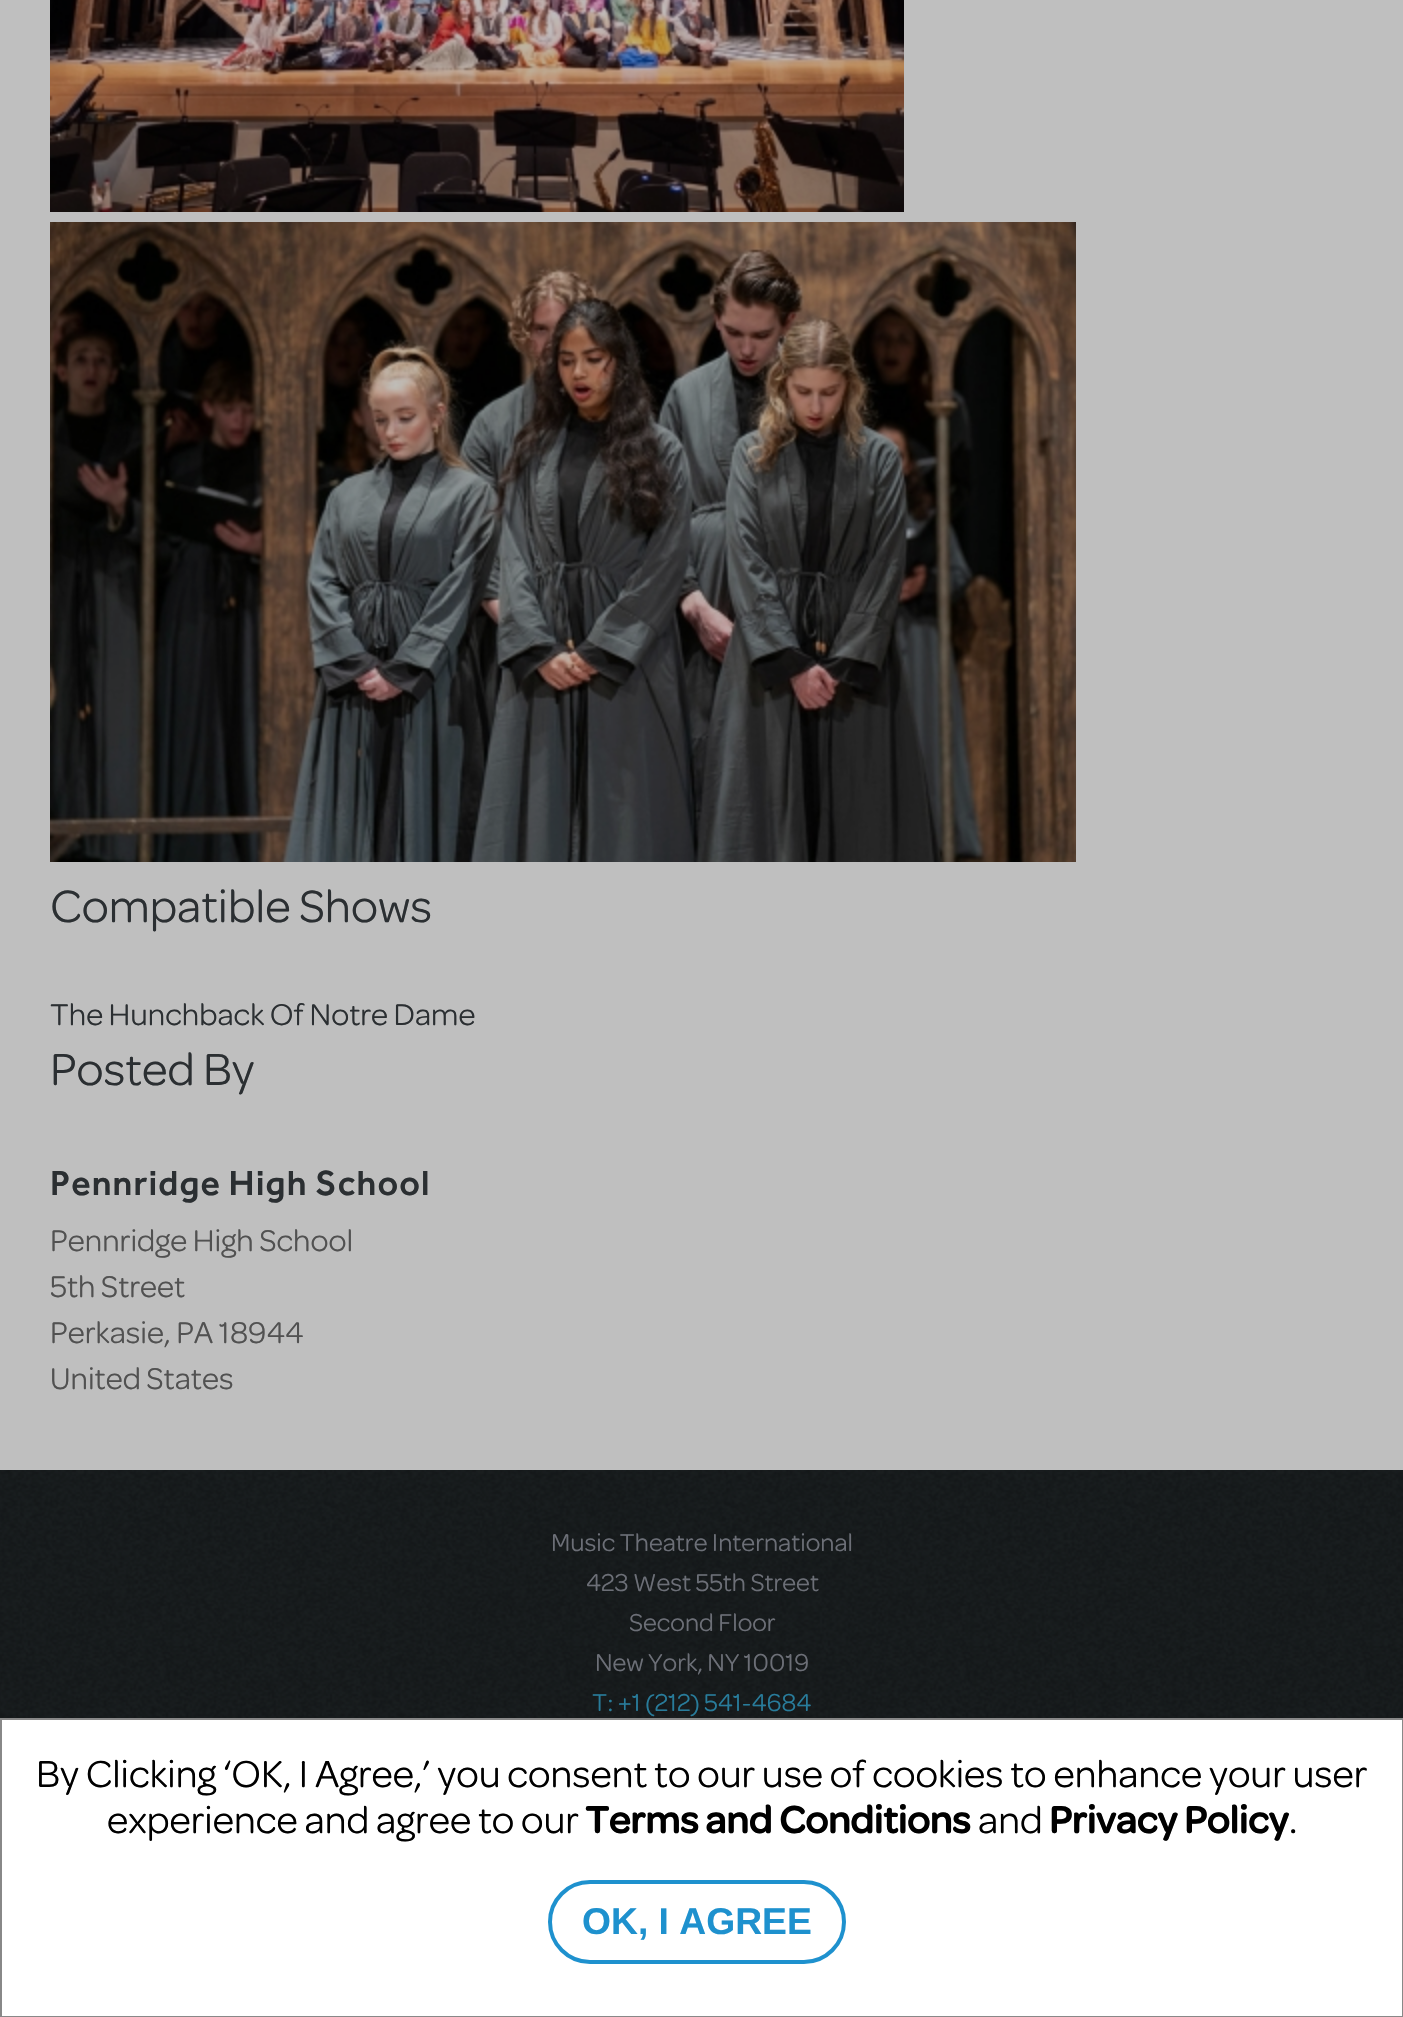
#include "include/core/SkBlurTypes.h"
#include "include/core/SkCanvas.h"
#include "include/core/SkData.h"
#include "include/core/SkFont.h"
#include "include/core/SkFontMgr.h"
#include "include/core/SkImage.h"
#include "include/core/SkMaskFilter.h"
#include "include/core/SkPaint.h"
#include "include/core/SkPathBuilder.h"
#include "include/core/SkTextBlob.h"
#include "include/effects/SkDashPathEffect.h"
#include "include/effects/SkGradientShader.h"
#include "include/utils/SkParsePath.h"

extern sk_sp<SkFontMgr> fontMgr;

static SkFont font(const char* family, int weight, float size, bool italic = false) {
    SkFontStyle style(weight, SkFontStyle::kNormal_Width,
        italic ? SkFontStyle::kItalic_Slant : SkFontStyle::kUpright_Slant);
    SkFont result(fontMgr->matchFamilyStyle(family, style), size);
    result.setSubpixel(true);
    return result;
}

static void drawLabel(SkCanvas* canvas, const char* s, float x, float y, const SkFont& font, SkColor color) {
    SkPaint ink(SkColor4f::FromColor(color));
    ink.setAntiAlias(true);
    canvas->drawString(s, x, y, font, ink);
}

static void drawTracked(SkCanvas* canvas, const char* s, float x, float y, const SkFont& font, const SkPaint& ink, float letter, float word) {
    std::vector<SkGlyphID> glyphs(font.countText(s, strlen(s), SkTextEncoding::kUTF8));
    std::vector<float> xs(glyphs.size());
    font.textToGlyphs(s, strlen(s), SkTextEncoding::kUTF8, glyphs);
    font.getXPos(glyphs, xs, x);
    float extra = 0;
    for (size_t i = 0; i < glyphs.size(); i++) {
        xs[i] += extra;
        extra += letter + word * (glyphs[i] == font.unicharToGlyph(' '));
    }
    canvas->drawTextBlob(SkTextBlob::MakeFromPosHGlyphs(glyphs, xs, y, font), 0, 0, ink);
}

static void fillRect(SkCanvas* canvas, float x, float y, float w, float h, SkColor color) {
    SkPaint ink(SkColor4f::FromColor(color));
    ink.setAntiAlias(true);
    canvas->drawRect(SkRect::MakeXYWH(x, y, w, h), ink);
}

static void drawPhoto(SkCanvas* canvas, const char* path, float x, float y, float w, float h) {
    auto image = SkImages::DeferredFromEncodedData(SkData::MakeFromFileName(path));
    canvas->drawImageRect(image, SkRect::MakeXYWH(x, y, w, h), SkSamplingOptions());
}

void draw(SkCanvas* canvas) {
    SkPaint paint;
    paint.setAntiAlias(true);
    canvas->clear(0xFFBFBFBF);
    drawPhoto(canvas, "assets/img1.png", 50, 0, 854, 212);
    drawPhoto(canvas, "assets/img2.png", 50, 222, 1026, 640);
    SkFont font1 = font("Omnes", 400, 48);
    drawLabel(canvas, "Compatible Shows", 50, 922, font1, 0xFF2B2F32);
    SkFont font2 = font("Omnes", 400, 32);
    drawLabel(canvas, "The Hunchback Of Notre Dame", 50, 1025, font2, 0xFF2B2F32);
    drawLabel(canvas, "Posted By", 50, 1085, font1, 0xFF2B2F32);
    SkFont font3 = font("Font", 500, 36);
    paint.setColor(0xFF2B2F32);
    drawTracked(canvas, "Pennridge High School", 50, 1195, font3, paint, 1.1f, 0);
    drawLabel(canvas, "Pennridge High School", 50, 1251, font2, 0xFF515151);
    drawLabel(canvas, "5th Street", 50, 1297, font2, 0xFF515151);
    drawLabel(canvas, "Perkasie, PA 18944", 50, 1343, font2, 0xFF515151);
    drawLabel(canvas, "United States", 50, 1389, font2, 0xFF515151);
    fillRect(canvas, 0, 1470, 1403, 248, 0xFF16110E);
    drawPhoto(canvas, "assets/img3.png", 0, 1470, 1403, 248);
    SkFont font4 = font("Omnes", 400, 26);
    drawLabel(canvas, "Music Theatre International", 551, 1551, font4, 0xFF6C6F77);
    drawLabel(canvas, "423 West 55th Street", 586, 1591, font4, 0xFF6C6F77);
    drawLabel(canvas, "Second Floor", 629, 1631, font4, 0xFF6C6F77);
    drawLabel(canvas, "New York, NY 10019", 595, 1671, font4, 0xFF6C6F77);
    drawLabel(canvas, "T: +1 (212) 541-4684", 592, 1711, font4, 0xFF287C9B);
    paint.setColor(0xFFFFFFFF);
    canvas->drawRect(SkRect::MakeXYWH(1, 1719, 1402, 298), paint);
    paint.setStroke(true);
    paint.setStrokeWidth(2);
    paint.setColor(0xFF888888);
    canvas->drawRect(SkRect::MakeXYWH(1, 1719, 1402, 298), paint);
    SkFont font5 = font("Omnes", 400, 40);
    drawLabel(canvas, "By Clicking ‘OK, I Agree,’ you consent to our use of cookies to enhance your user", 36, 1787, font5, 0xFF000000);
    drawLabel(canvas, "experience and agree to our", 107, 1833, font5, 0xFF000000);
    SkFont font6 = font("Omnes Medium", 700, 40);
    drawLabel(canvas, "Terms and Conditions", 585, 1833, font6, 0xFF000000);
    drawLabel(canvas, "and", 978, 1833, font5, 0xFF000000);
    drawLabel(canvas, "Privacy Policy", 1049, 1833, font6, 0xFF000000);
    drawLabel(canvas, ".", 1289, 1833, font5, 0xFF000000);
    paint.setStrokeWidth(4);
    paint.setColor(0xFF1E91CE);
    canvas->drawRoundRect(SkRect::MakeXYWH(550, 1882, 294, 80), 40, 40, paint);
    SkFont font7 = font("Liberation Sans", 700, 37.25f);
    drawLabel(canvas, "OK, I AGREE", 582, 1934, font7, 0xFF1E91CE);
}
